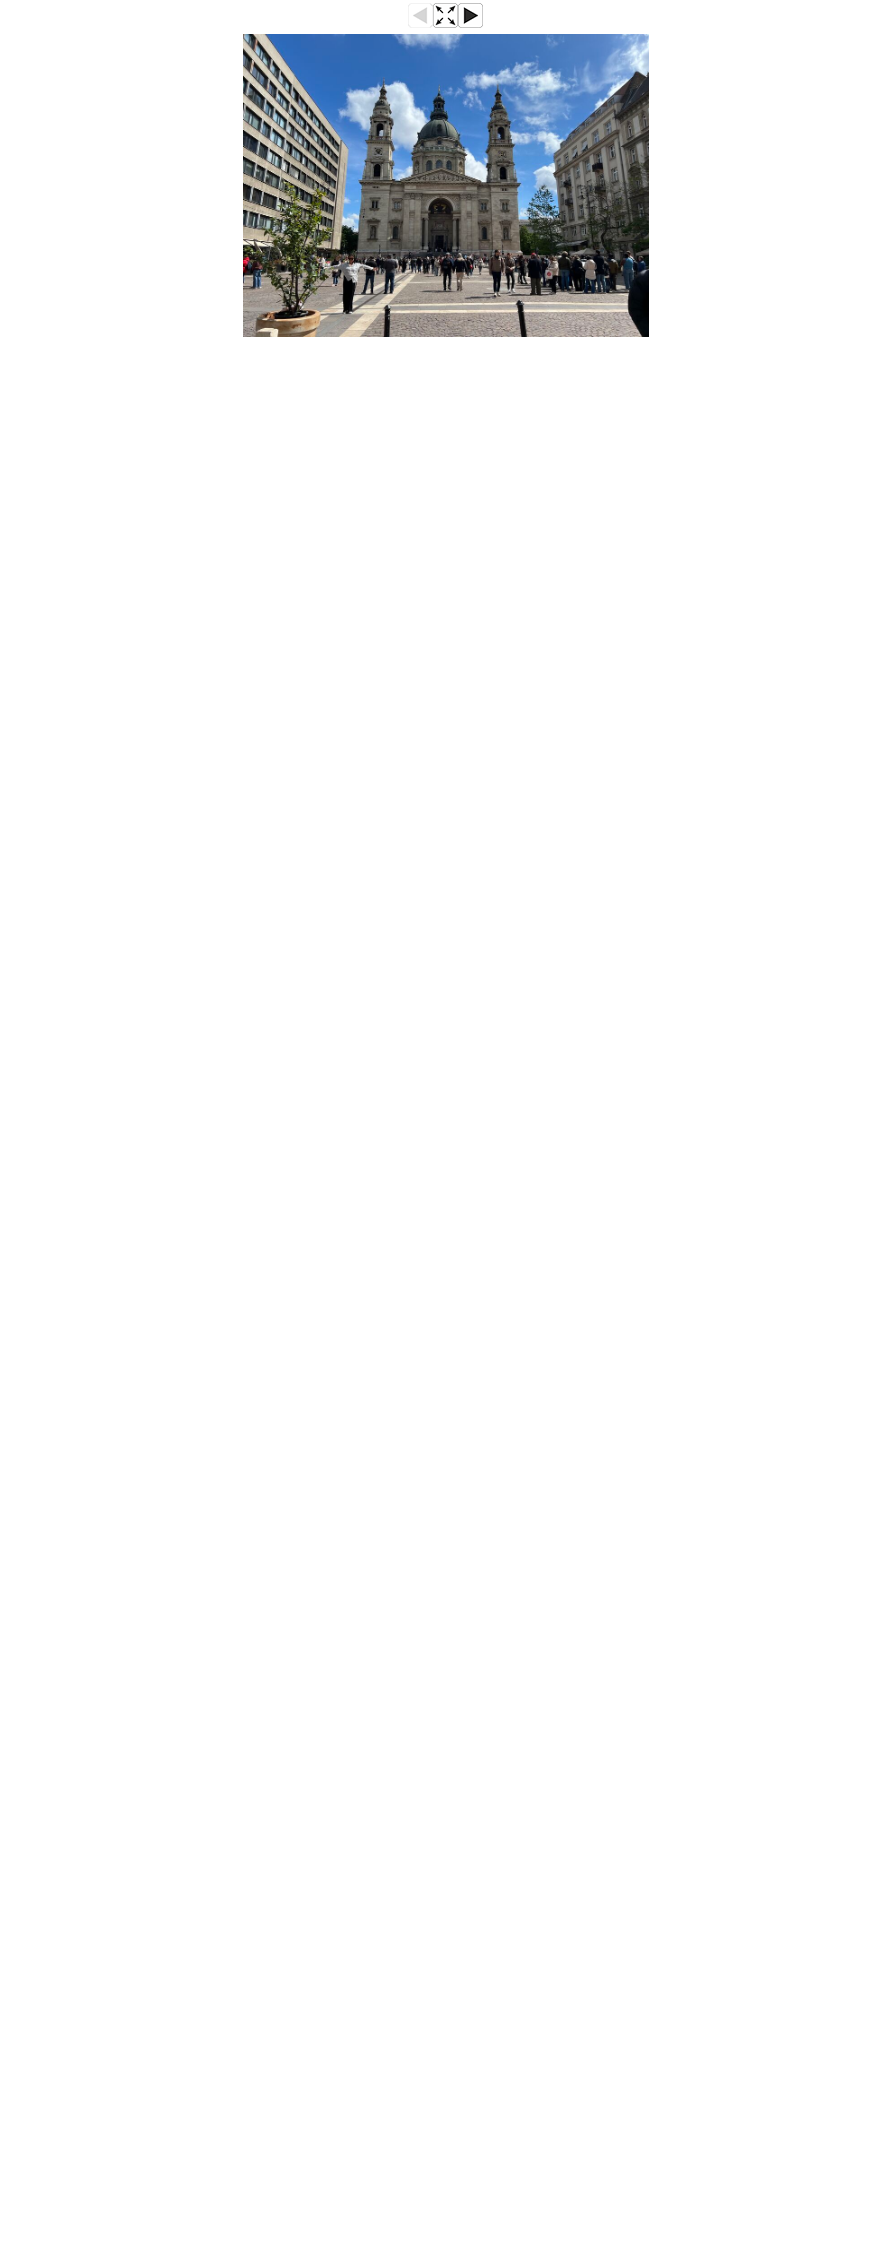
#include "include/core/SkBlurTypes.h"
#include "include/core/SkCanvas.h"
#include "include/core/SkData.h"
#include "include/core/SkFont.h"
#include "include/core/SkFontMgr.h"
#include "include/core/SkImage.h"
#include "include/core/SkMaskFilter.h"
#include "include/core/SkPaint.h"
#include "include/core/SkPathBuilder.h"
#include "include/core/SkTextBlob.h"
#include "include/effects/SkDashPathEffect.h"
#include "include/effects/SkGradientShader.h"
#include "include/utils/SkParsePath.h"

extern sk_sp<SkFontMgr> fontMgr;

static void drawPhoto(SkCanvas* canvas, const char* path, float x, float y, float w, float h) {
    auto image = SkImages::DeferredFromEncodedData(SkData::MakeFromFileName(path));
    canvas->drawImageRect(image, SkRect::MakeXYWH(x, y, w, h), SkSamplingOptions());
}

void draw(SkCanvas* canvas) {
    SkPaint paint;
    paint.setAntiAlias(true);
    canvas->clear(0xFFFFFFFF);
    drawPhoto(canvas, "assets/img1.png", 408, 3, 25, 25);
    drawPhoto(canvas, "assets/img2.png", 433, 3, 25, 25);
    drawPhoto(canvas, "assets/img3.png", 458, 3, 25, 25);
    drawPhoto(canvas, "assets/img4.png", 243, 34, 406, 303);
}
